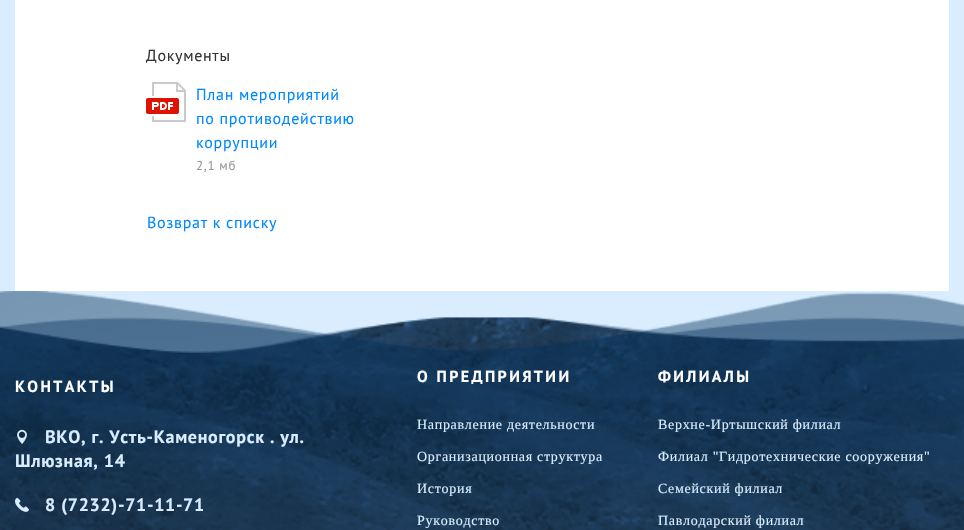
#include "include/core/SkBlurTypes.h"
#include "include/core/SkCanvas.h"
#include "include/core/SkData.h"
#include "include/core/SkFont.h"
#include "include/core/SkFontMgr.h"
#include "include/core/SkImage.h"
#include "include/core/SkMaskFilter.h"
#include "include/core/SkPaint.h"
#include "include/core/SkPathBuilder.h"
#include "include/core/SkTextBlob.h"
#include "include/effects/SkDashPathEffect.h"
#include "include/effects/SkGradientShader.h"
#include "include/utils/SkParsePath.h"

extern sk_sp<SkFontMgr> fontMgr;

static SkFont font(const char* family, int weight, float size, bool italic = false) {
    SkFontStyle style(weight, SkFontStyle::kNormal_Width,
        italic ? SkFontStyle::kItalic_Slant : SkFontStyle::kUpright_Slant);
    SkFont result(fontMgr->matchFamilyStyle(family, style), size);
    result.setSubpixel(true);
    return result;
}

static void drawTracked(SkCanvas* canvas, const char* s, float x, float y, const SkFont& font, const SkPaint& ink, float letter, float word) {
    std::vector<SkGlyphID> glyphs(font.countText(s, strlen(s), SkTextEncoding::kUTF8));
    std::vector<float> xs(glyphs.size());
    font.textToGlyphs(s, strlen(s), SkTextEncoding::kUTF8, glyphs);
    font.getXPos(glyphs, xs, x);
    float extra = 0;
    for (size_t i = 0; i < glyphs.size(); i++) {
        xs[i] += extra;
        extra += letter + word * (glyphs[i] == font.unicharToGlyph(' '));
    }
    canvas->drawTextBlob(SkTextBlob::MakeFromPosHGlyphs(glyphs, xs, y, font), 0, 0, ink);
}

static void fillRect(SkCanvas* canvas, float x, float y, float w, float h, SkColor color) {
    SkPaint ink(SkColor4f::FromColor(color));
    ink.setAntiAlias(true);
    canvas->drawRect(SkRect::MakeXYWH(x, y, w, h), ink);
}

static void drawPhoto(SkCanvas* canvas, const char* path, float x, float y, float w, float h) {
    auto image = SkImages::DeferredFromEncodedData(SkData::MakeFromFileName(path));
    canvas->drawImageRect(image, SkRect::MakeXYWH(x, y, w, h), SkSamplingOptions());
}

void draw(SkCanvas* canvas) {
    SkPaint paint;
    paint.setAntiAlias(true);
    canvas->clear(0xFFD9EDFF);
    fillRect(canvas, 15, 0, 934, 291, 0xFFFFFFFF);
    SkFont font1 = font("PT Sans", 400, 16);
    paint.setColor(0xFF373435);
    drawTracked(canvas, "Документы", 146, 61, font1, paint, 0.7f, 0);
    drawPhoto(canvas, "assets/img1.png", 146, 82, 40, 40);
    paint.setColor(0xFF0088FF);
    drawTracked(canvas, "План мероприятий", 196, 100, font1, paint, 0.7f, 0);
    drawTracked(canvas, "по противодействию", 196, 124, font1, paint, 0.7f, 0);
    drawTracked(canvas, "коррупции", 196, 148, font1, paint, 0.7f, 0);
    SkFont font2 = font("PT Sans", 400, 13);
    paint.setColor(0xFF999999);
    drawTracked(canvas, "2,1 мб", 196, 170, font2, paint, 0.7f, 0);
    paint.setColor(0xFF0088FF);
    drawTracked(canvas, "Возврат к списку", 147, 228, font1, paint, 0.7f, 0);
    drawPhoto(canvas, "assets/img2.png", 0, 291, 964, 239);
    SkFont font3 = font("PT Sans", 700, 16);
    paint.setColor(0xFFFFFFFF);
    drawTracked(canvas, "КОНТАКТЫ", 15, 392, font3, paint, 2.4f, 0);
    drawPhoto(canvas, "assets/img3.png", 17, 429, 10, 15);
    SkFont font4 = font("PT Sans", 700, 18);
    paint.setColor(0xFFD9EDFF);
    drawTracked(canvas, "ВКО, г. Усть-Каменогорск . ул.", 45, 443, font4, paint, 0.7f, 0);
    drawTracked(canvas, "Шлюзная, 14", 15, 467, font4, paint, 0.7f, 0);
    drawPhoto(canvas, "assets/img4.png", 15, 497, 14, 15);
    drawTracked(canvas, "8 (7232)-71-11-71", 45, 511, font4, paint, 0.7f, 0);
    paint.setColor(0xFFFFFFFF);
    drawTracked(canvas, "О ПРЕДПРИЯТИИ", 417, 382, font3, paint, 2.4f, 0);
    SkFont font5 = font("Liberation Serif", 400, 14);
    paint.setColor(0xFFD9EDFF);
    drawTracked(canvas, "Направление деятельности", 417, 429, font5, paint, 0.7f, 0);
    drawTracked(canvas, "Организационная структура", 417, 461, font5, paint, 0.7f, 0);
    drawTracked(canvas, "История", 417, 493, font5, paint, 0.7f, 0);
    drawTracked(canvas, "Руководство", 417, 525, font5, paint, 0.7f, 0);
    paint.setColor(0xFFFFFFFF);
    drawTracked(canvas, "ФИЛИАЛЫ", 658, 382, font3, paint, 2.4f, 0);
    paint.setColor(0xFFD9EDFF);
    drawTracked(canvas, "Верхне-Иртышский филиал", 658, 429, font5, paint, 0.7f, 0);
    drawTracked(canvas, "Филиал \"Гидротехнические сооружения\"", 658, 461, font5, paint, 0.7f, 0);
    drawTracked(canvas, "Семейский филиал", 658, 493, font5, paint, 0.7f, 0);
    drawTracked(canvas, "Павлодарский филиал", 658, 525, font5, paint, 0.7f, 0);
}
